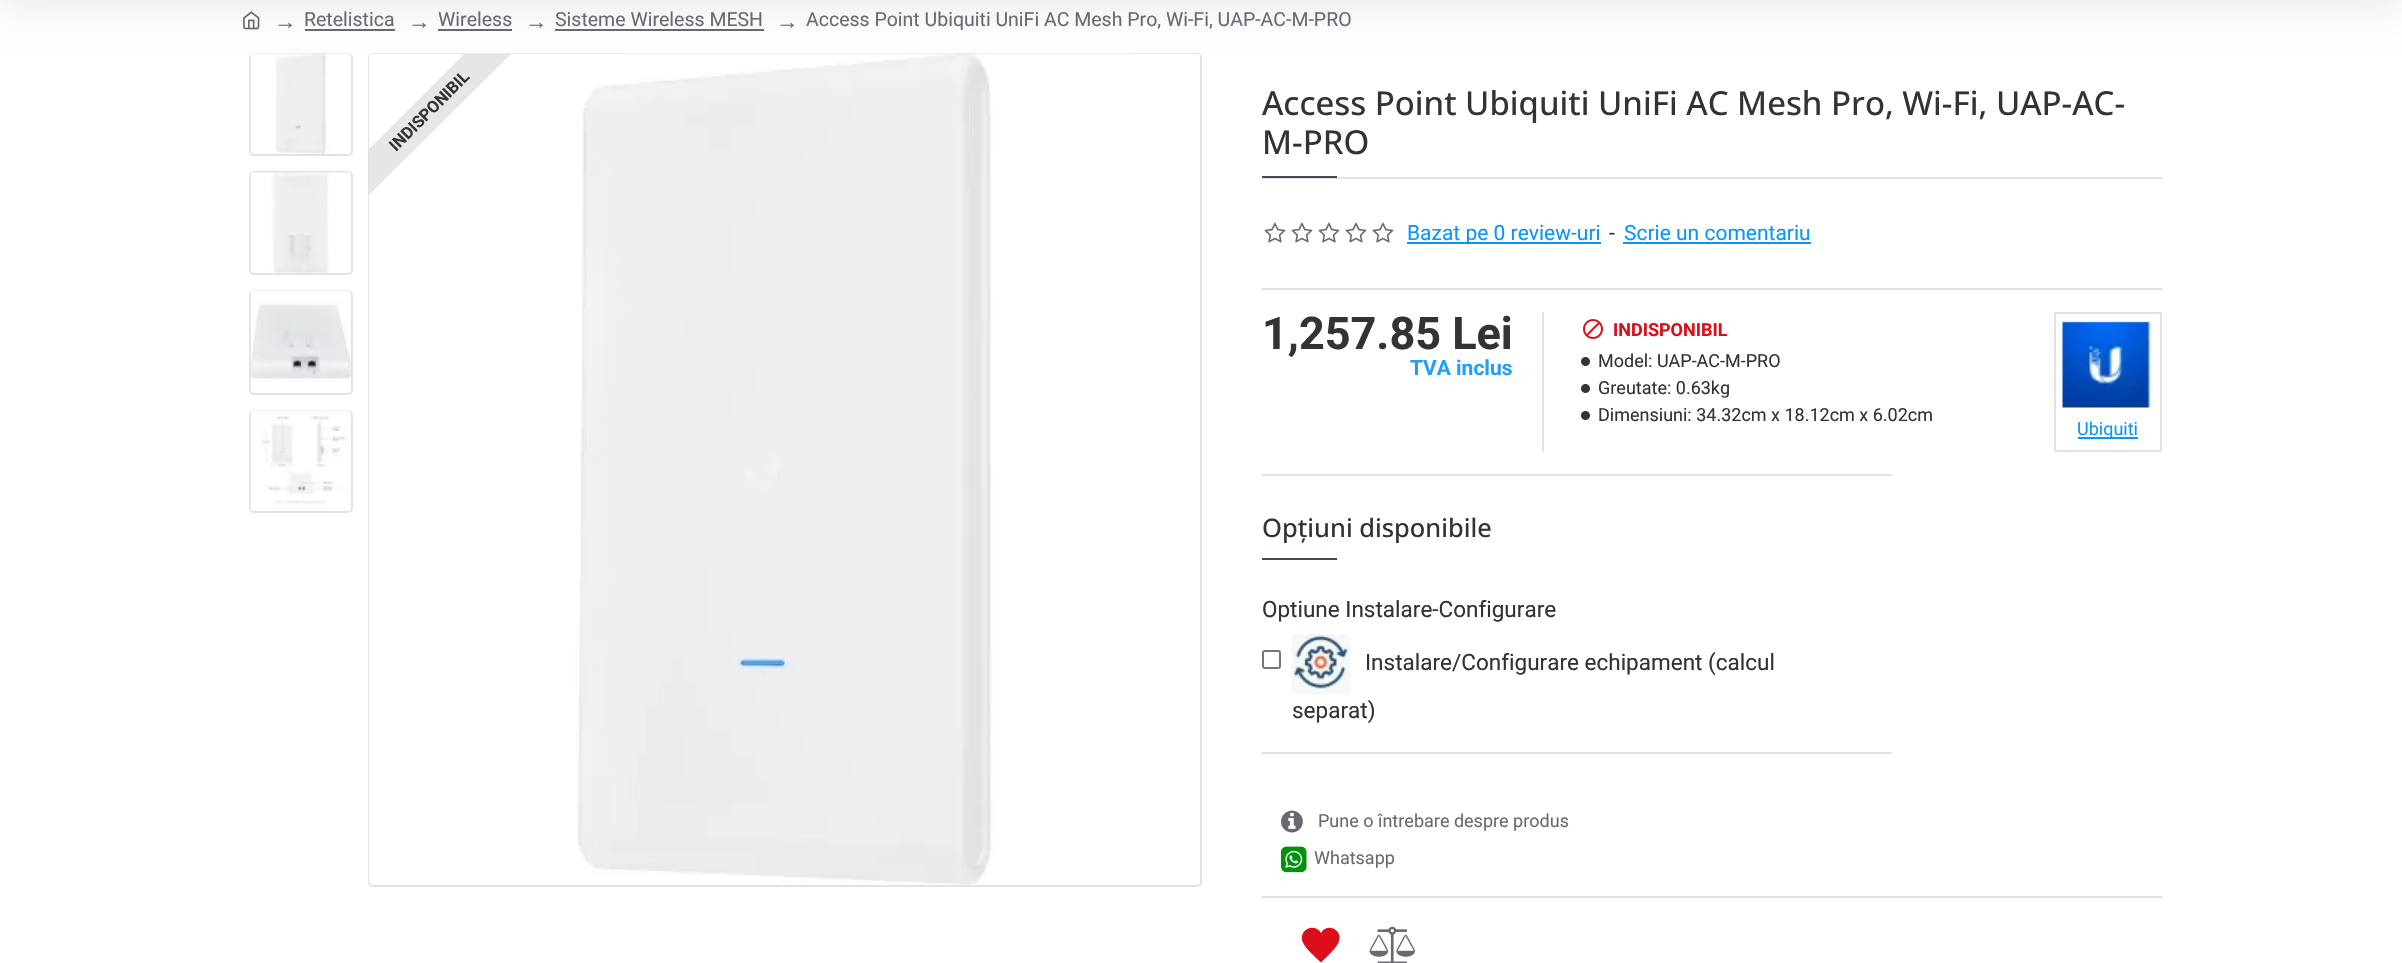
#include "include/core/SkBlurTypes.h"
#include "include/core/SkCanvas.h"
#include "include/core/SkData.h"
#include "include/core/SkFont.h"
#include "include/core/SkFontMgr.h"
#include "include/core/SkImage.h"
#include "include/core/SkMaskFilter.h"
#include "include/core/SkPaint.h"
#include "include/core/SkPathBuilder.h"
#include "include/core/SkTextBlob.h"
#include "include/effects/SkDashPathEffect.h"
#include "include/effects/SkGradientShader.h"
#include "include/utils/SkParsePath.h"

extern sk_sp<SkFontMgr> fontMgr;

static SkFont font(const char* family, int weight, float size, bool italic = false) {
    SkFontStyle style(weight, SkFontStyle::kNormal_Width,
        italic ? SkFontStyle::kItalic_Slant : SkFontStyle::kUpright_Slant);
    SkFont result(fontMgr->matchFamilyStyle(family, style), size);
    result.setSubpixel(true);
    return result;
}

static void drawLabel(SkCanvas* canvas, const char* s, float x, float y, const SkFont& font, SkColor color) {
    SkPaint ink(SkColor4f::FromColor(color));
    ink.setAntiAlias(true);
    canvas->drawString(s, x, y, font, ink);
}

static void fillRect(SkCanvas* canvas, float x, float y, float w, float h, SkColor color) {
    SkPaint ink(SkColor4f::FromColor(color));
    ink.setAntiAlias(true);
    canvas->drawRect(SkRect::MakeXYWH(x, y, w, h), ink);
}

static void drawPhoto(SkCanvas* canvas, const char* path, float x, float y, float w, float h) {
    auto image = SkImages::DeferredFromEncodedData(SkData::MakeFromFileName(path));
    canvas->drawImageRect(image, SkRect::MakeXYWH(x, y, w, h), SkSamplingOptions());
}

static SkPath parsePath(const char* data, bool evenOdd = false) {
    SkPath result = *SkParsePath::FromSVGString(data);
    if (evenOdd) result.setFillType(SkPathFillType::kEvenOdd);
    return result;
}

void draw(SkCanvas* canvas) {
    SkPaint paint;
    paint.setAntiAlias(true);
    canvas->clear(0xFFFFFFFF);
    drawPhoto(canvas, "assets/img1.png", 243, 11, 17, 19);
    fillRect(canvas, 305, 29, 90, 2, 0xFF696973);
    fillRect(canvas, 438, 29, 74, 2, 0xFF696973);
    fillRect(canvas, 555, 29, 209, 2, 0xFF696973);
    paint.setStroke(true);
    paint.setStrokeWidth(2);
    paint.setColor(0xFFE2E2E2);
    canvas->drawRoundRect(SkRect::MakeXYWH(250, 54, 102, 101), 4, 4, paint);
    drawPhoto(canvas, "assets/img2.png", 250, 53, 101, 101);
    canvas->drawRoundRect(SkRect::MakeXYWH(369, 54, 832, 832), 4, 4, paint);
    drawPhoto(canvas, "assets/img6.png", 369, 53, 831, 832);
    paint.setStroke(false);
    paint.setColor(0xFFE6E6E6);
    canvas->drawPath(parsePath("M511 54L369 195V149L464 54Z"), paint);
    paint.setColor(0x1A000000);
    paint.setMaskFilter(SkMaskFilter::MakeBlur(kNormal_SkBlurStyle, 22.5f));
    canvas->drawRect(SkRect::MakeXYWH(0, -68, 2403, 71), paint);
    paint.setMaskFilter(nullptr);
    SkFont font1 = font("Liberation Serif", 400, 22.5f);
    drawLabel(canvas, "→", 274, 29, font1, 0xFF696973);
    SkFont font2 = font("Roboto", 400, 19.5f);
    drawLabel(canvas, "Retelistica", 304, 26, font2, 0xFF696973);
    drawLabel(canvas, "→", 408, 29, font1, 0xFF696973);
    drawLabel(canvas, "Wireless", 438, 26, font2, 0xFF696973);
    drawLabel(canvas, "→", 525, 29, font1, 0xFF696973);
    drawLabel(canvas, "Sisteme Wireless MESH", 555, 26, font2, 0xFF696973);
    drawLabel(canvas, "→", 776, 29, font1, 0xFF696973);
    drawLabel(canvas, "Access Point Ubiquiti UniFi AC Mesh Pro, Wi-Fi, UAP-AC-M-PRO", 806, 26, font2, 0xFF696973);
    paint.setStroke(true);
    paint.setColor(0xFFE2E2E2);
    canvas->drawRoundRect(SkRect::MakeXYWH(250, 172, 102, 102), 4, 4, paint);
    drawPhoto(canvas, "assets/img3.png", 250, 172, 101, 101);
    canvas->drawRoundRect(SkRect::MakeXYWH(250, 291, 102, 103), 4, 4, paint);
    drawPhoto(canvas, "assets/img4.png", 250, 290, 101, 103);
    canvas->drawRoundRect(SkRect::MakeXYWH(250, 411, 102, 101), 4, 4, paint);
    drawPhoto(canvas, "assets/img5.png", 250, 410, 101, 101);
    SkFont font3 = font("Roboto", 700, 16.5f);
    canvas->save();
    canvas->rotate(-45, 396, 152);
    drawLabel(canvas, "INDISPONIBIL", 396, 152, font3, 0xFF333333);
    canvas->restore();
    fillRect(canvas, 1262, 177, 900, 2, 0xFFE2E2E2);
    SkFont font4 = font("Open Sans", 500, 33);
    drawLabel(canvas, "Access Point Ubiquiti UniFi AC Mesh Pro, Wi-Fi, UAP-AC-", 1262, 115, font4, 0xFF333333);
    drawLabel(canvas, "M-PRO", 1262, 154, font4, 0xFF333333);
    fillRect(canvas, 1262, 176, 75, 2, 0xFF474A54);
    fillRect(canvas, 1262, 288, 900, 2, 0xFFE2E2E2);
    drawPhoto(canvas, "assets/img7.png", 1264, 222, 22, 21);
    drawPhoto(canvas, "assets/img7.png", 1291, 222, 22, 21);
    drawPhoto(canvas, "assets/img7.png", 1318, 222, 22, 21);
    drawPhoto(canvas, "assets/img7.png", 1345, 222, 22, 21);
    drawPhoto(canvas, "assets/img7.png", 1372, 222, 22, 21);
    fillRect(canvas, 1407, 242, 194, 2, 0xFF0C96F1);
    SkFont font5 = font("Roboto", 400, 21);
    drawLabel(canvas, "Bazat pe 0 review-uri", 1407, 240, font5, 0xFF0C96F1);
    drawLabel(canvas, "-", 1609, 240, font5, 0xFF333333);
    drawLabel(canvas, "Scrie un comentariu", 1624, 240, font5, 0xFF0C96F1);
    fillRect(canvas, 1623, 242, 188, 2, 0xFF0C96F1);
    SkFont font6 = font("Roboto", 700, 45);
    drawLabel(canvas, "1,257.85 Lei", 1262, 349, font6, 0xFF333333);
    SkFont font7 = font("Roboto", 700, 21);
    drawLabel(canvas, "TVA inclus", 1410, 375, font7, 0xFF239FF8);
    fillRect(canvas, 1542, 312, 2, 140, 0xFFE2E2E2);
    drawPhoto(canvas, "assets/img8.png", 1583, 319, 20, 20);
    SkFont font8 = font("Roboto", 700, 18);
    drawLabel(canvas, "INDISPONIBIL", 1613, 336, font8, 0xFFDD0E1C);
    drawPhoto(canvas, "assets/img9.png", 1581, 357, 9, 9);
    SkFont font9 = font("Roboto", 400, 18);
    drawLabel(canvas, "Model: UAP-AC-M-PRO", 1598, 367, font9, 0xFF333333);
    drawPhoto(canvas, "assets/img9.png", 1581, 384, 9, 9);
    drawLabel(canvas, "Greutate: 0.63kg", 1598, 394, font9, 0xFF333333);
    drawPhoto(canvas, "assets/img9.png", 1581, 411, 9, 9);
    drawLabel(canvas, "Dimensiuni: 34.32cm x 18.12cm x 6.02cm", 1598, 421, font9, 0xFF333333);
    canvas->drawRect(SkRect::MakeXYWH(2055, 313, 106, 138), paint);
    drawPhoto(canvas, "assets/img10.png", 2062, 321, 91, 87);
    fillRect(canvas, 2078, 437, 60, 2, 0xFF0C96F1);
    drawLabel(canvas, "Ubiquiti", 2077, 435, font9, 0xFF0C96F1);
    fillRect(canvas, 1262, 474, 630, 2, 0xFFE2E2E2);
    fillRect(canvas, 1262, 752, 630, 2, 0xFFE2E2E2);
    SkFont font10 = font("Open Sans", 500, 25.5f);
    drawLabel(canvas, "Opțiuni disponibile", 1262, 537, font10, 0xFF333333);
    fillRect(canvas, 1262, 558, 75, 2, 0xFF474A54);
    SkFont font11 = font("Roboto", 400, 22.5f);
    drawLabel(canvas, "Optiune Instalare-Configurare", 1262, 617, font11, 0xFF333333);
    paint.setColor(0xFF767676);
    canvas->drawRoundRect(SkRect::MakeXYWH(1263, 651, 17, 17), 2, 2, paint);
    drawPhoto(canvas, "assets/img11.png", 1291, 634, 59, 60);
    drawLabel(canvas, "Instalare/Configurare echipament (calcul", 1365, 670, font11, 0xFF333333);
    drawLabel(canvas, "separat)", 1292, 718, font11, 0xFF333333);
    drawPhoto(canvas, "assets/img12.png", 1281, 810, 22, 23);
    drawLabel(canvas, "Pune o întrebare despre produs", 1318, 827, font9, 0xFF696973);
    drawPhoto(canvas, "assets/img13.png", 1281, 846, 26, 27);
    drawLabel(canvas, "Whatsapp", 1314, 864, font9, 0xFF696973);
    fillRect(canvas, 1262, 896, 900, 2, 0xFFE2E2E2);
    paint.setStroke(false);
    paint.setColor(0xFFDD0E1C);
    canvas->drawPath(parsePath("M1321 933C1314.5 922 1297.5 930 1303 942.5C1306.5 950 1315 956.5 1321 962.5C1326.5 956.5 1335 950 1338.5 942.5C1344 930 1327 922 1321 933Z"), paint);
    drawPhoto(canvas, "assets/img14.png", 1369, 926, 46, 37);
}
